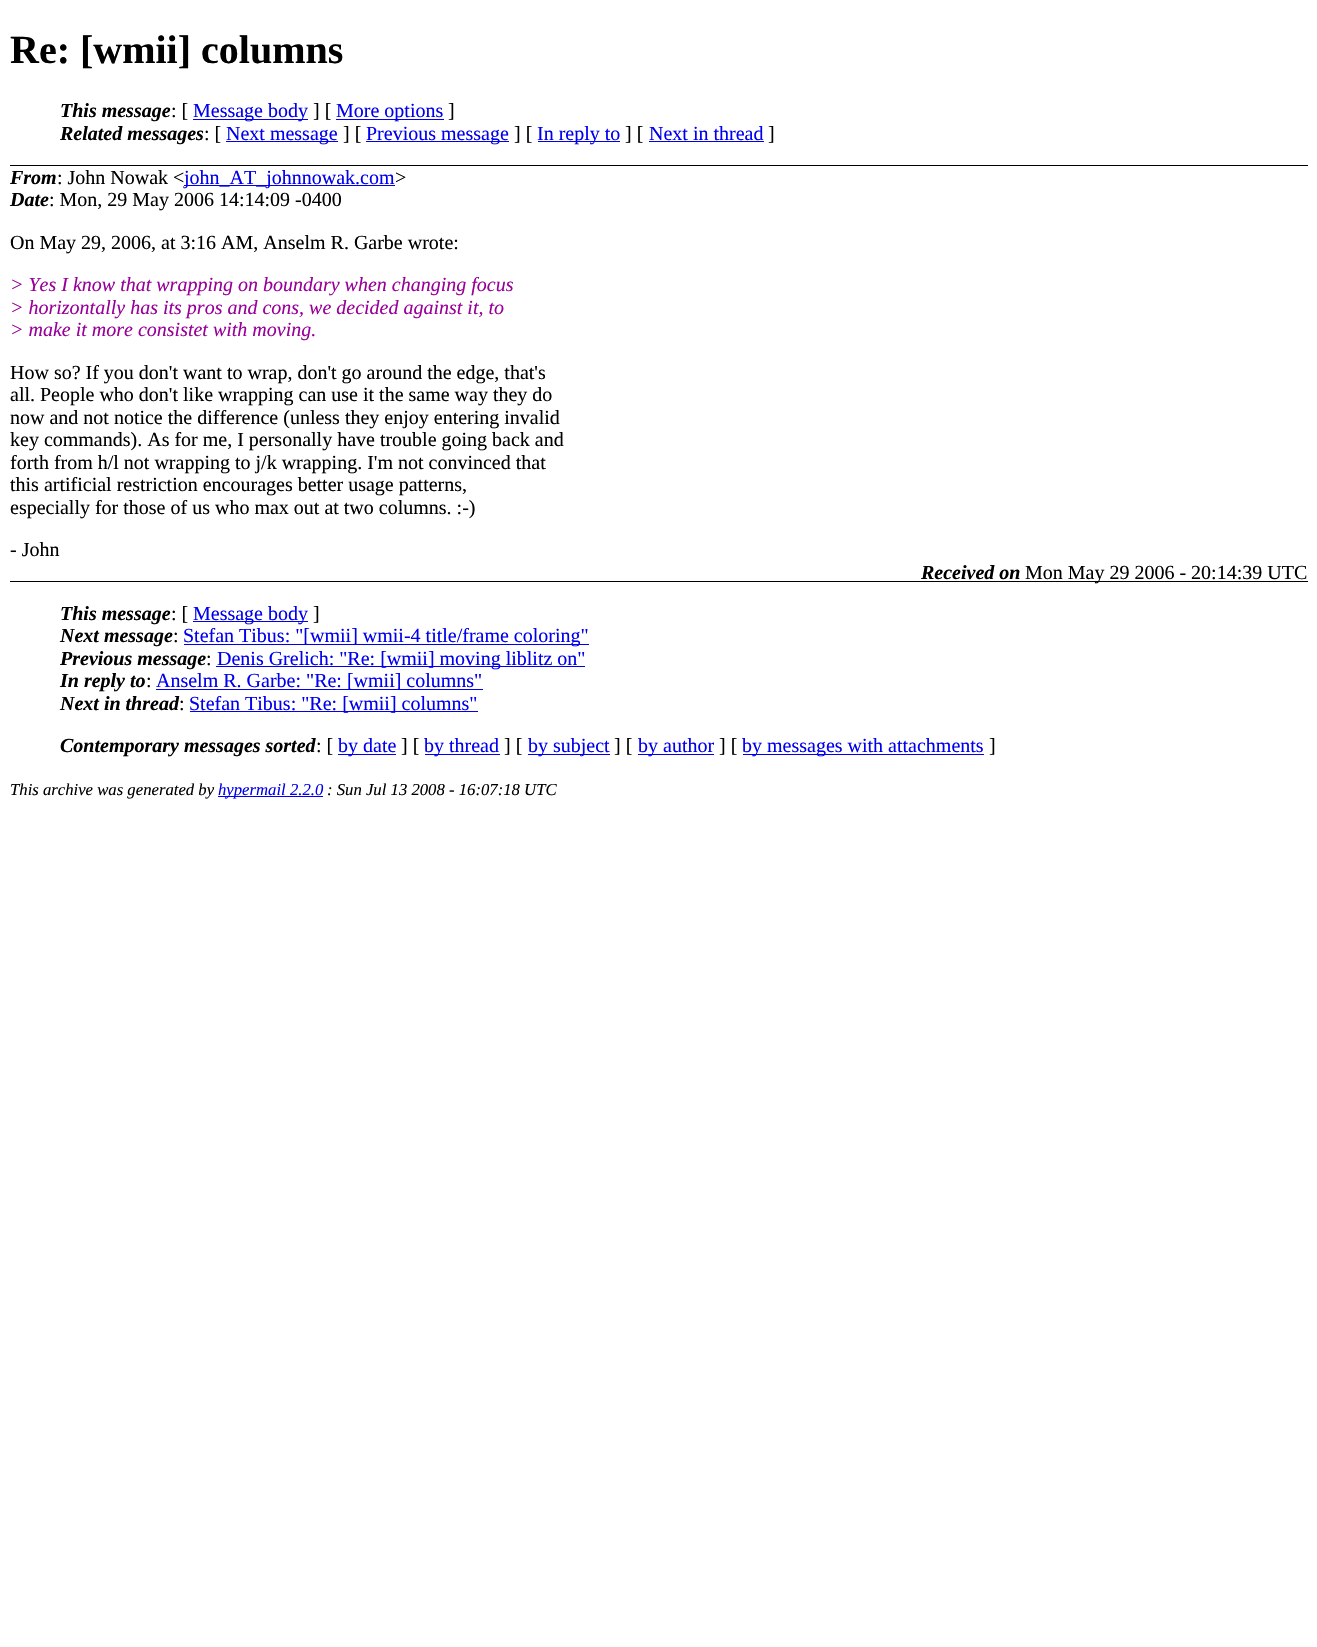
#include "include/core/SkBlurTypes.h"
#include "include/core/SkCanvas.h"
#include "include/core/SkData.h"
#include "include/core/SkFont.h"
#include "include/core/SkFontMgr.h"
#include "include/core/SkImage.h"
#include "include/core/SkMaskFilter.h"
#include "include/core/SkPaint.h"
#include "include/core/SkPathBuilder.h"
#include "include/core/SkTextBlob.h"
#include "include/effects/SkDashPathEffect.h"
#include "include/effects/SkGradientShader.h"
#include "include/utils/SkParsePath.h"

extern sk_sp<SkFontMgr> fontMgr;

static SkFont font(const char* family, int weight, float size, bool italic = false) {
    SkFontStyle style(weight, SkFontStyle::kNormal_Width,
        italic ? SkFontStyle::kItalic_Slant : SkFontStyle::kUpright_Slant);
    SkFont result(fontMgr->matchFamilyStyle(family, style), size);
    result.setSubpixel(true);
    return result;
}

static void drawLabel(SkCanvas* canvas, const char* s, float x, float y, const SkFont& font, SkColor color) {
    SkPaint ink(SkColor4f::FromColor(color));
    ink.setAntiAlias(true);
    canvas->drawString(s, x, y, font, ink);
}

static void fillRect(SkCanvas* canvas, float x, float y, float w, float h, SkColor color) {
    SkPaint ink(SkColor4f::FromColor(color));
    ink.setAntiAlias(true);
    canvas->drawRect(SkRect::MakeXYWH(x, y, w, h), ink);
}

void draw(SkCanvas* canvas) {
    SkPaint paint;
    paint.setAntiAlias(true);
    canvas->clear(0xFFFFFFFF);
    fillRect(canvas, 10, 165, 1298, 1, 0xFF000000);
    SkFont font1 = font("Liberation Serif", 700, 40);
    drawLabel(canvas, "Re: [wmii] columns", 10, 63, font1, 0xFF000000);
    SkFont font2 = font("Liberation Serif", 700, 20, true);
    drawLabel(canvas, "This message", 60, 117, font2, 0xFF000000);
    SkFont font3 = font("Liberation Serif", 400, 20);
    drawLabel(canvas, ": [", 171, 117, font3, 0xFF000000);
    fillRect(canvas, 193, 119, 115, 1, 0xFF0000EE);
    drawLabel(canvas, "Message body", 193, 117, font3, 0xFF0000EE);
    drawLabel(canvas, "] [", 313, 117, font3, 0xFF000000);
    fillRect(canvas, 336, 119, 108, 1, 0xFF0000EE);
    drawLabel(canvas, "More options", 336, 117, font3, 0xFF0000EE);
    drawLabel(canvas, "]", 448, 117, font3, 0xFF000000);
    drawLabel(canvas, "Related messages", 60, 140, font2, 0xFF000000);
    drawLabel(canvas, ": [", 204, 140, font3, 0xFF000000);
    fillRect(canvas, 226, 141, 112, 1, 0xFF0000EE);
    drawLabel(canvas, "Next message", 226, 140, font3, 0xFF0000EE);
    drawLabel(canvas, "] [", 343, 140, font3, 0xFF000000);
    fillRect(canvas, 366, 141, 143, 1, 0xFF0000EE);
    drawLabel(canvas, "Previous message", 366, 140, font3, 0xFF0000EE);
    drawLabel(canvas, "] [", 514, 140, font3, 0xFF000000);
    fillRect(canvas, 538, 141, 82, 1, 0xFF0000EE);
    drawLabel(canvas, "In reply to", 537, 140, font3, 0xFF0000EE);
    drawLabel(canvas, "] [", 625, 140, font3, 0xFF000000);
    drawLabel(canvas, "Next in thread", 649, 140, font3, 0xFF0000EE);
    fillRect(canvas, 649, 141, 115, 1, 0xFF0000EE);
    drawLabel(canvas, "]", 768, 140, font3, 0xFF000000);
    drawLabel(canvas, "From", 10, 184, font2, 0xFF000000);
    drawLabel(canvas, ": John Nowak <", 57, 184, font3, 0xFF000000);
    fillRect(canvas, 184, 185, 211, 1, 0xFF0000EE);
    drawLabel(canvas, "john_AT_johnnowak.com", 184, 184, font3, 0xFF0000EE);
    drawLabel(canvas, ">", 395, 184, font3, 0xFF000000);
    drawLabel(canvas, "Date", 10, 206, font2, 0xFF000000);
    drawLabel(canvas, ": Mon, 29 May 2006 14:14:09 -0400", 49, 206, font3, 0xFF000000);
    drawLabel(canvas, "On May 29, 2006, at 3:16 AM, Anselm R. Garbe wrote:", 10, 249, font3, 0xFF000000);
    SkFont font4 = font("Liberation Serif", 400, 20, true);
    drawLabel(canvas, "> Yes I know that wrapping on boundary when changing focus", 10, 291, font4, 0xFF990099);
    drawLabel(canvas, "> horizontally has its pros and cons, we decided against it, to", 10, 314, font4, 0xFF990099);
    drawLabel(canvas, "> make it more consistet with moving.", 10, 336, font4, 0xFF990099);
    drawLabel(canvas, "How so? If you don't want to wrap, don't go around the edge, that's", 10, 379, font3, 0xFF000000);
    drawLabel(canvas, "all. People who don't like wrapping can use it the same way they do", 10, 401, font3, 0xFF000000);
    drawLabel(canvas, "now and not notice the difference (unless they enjoy entering invalid", 10, 424, font3, 0xFF000000);
    drawLabel(canvas, "key commands). As for me, I personally have trouble going back and", 10, 446, font3, 0xFF000000);
    drawLabel(canvas, "forth from h/l not wrapping to j/k wrapping. I'm not convinced that", 10, 469, font3, 0xFF000000);
    drawLabel(canvas, "this artificial restriction encourages better usage patterns,", 10, 491, font3, 0xFF000000);
    drawLabel(canvas, "especially for those of us who max out at two columns. :-)", 10, 514, font3, 0xFF000000);
    drawLabel(canvas, "- John", 10, 556, font3, 0xFF000000);
    drawLabel(canvas, "Received on", 921, 579, font2, 0xFF000000);
    fillRect(canvas, 10, 581, 1298, 1, 0xFF000000);
    drawLabel(canvas, "Mon May 29 2006 - 20:14:39 UTC", 1025, 579, font3, 0xFF000000);
    drawLabel(canvas, "This message", 60, 620, font2, 0xFF000000);
    drawLabel(canvas, ": [", 171, 620, font3, 0xFF000000);
    fillRect(canvas, 193, 621, 115, 1, 0xFF0000EE);
    drawLabel(canvas, "Message body", 193, 620, font3, 0xFF0000EE);
    drawLabel(canvas, "]", 313, 620, font3, 0xFF000000);
    drawLabel(canvas, "Next message", 60, 642, font2, 0xFF000000);
    drawLabel(canvas, ":", 173, 642, font3, 0xFF000000);
    fillRect(canvas, 184, 644, 405, 1, 0xFF0000EE);
    drawLabel(canvas, "Stefan Tibus: \"[wmii] wmii-4 title/frame coloring\"", 183, 642, font3, 0xFF0000EE);
    drawLabel(canvas, "Previous message", 60, 665, font2, 0xFF000000);
    drawLabel(canvas, ":", 206, 665, font3, 0xFF000000);
    fillRect(canvas, 216, 666, 369, 1, 0xFF0000EE);
    drawLabel(canvas, "Denis Grelich: \"Re: [wmii] moving liblitz on\"", 217, 665, font3, 0xFF0000EE);
    drawLabel(canvas, "In reply to", 60, 687, font2, 0xFF000000);
    drawLabel(canvas, ":", 146, 687, font3, 0xFF000000);
    fillRect(canvas, 156, 689, 327, 1, 0xFF0000EE);
    drawLabel(canvas, "Anselm R. Garbe: \"Re: [wmii] columns\"", 156, 687, font3, 0xFF0000EE);
    drawLabel(canvas, "Next in thread", 60, 710, font2, 0xFF000000);
    drawLabel(canvas, ":", 179, 710, font3, 0xFF000000);
    fillRect(canvas, 190, 711, 288, 1, 0xFF0000EE);
    drawLabel(canvas, "Stefan Tibus: \"Re: [wmii] columns\"", 189, 710, font3, 0xFF0000EE);
    drawLabel(canvas, "Contemporary messages sorted", 60, 752, font2, 0xFF000000);
    drawLabel(canvas, ": [", 316, 752, font3, 0xFF000000);
    fillRect(canvas, 338, 754, 58, 1, 0xFF0000EE);
    drawLabel(canvas, "by date", 338, 752, font3, 0xFF0000EE);
    drawLabel(canvas, "] [", 401, 752, font3, 0xFF000000);
    fillRect(canvas, 425, 754, 75, 1, 0xFF0000EE);
    drawLabel(canvas, "by thread", 424, 752, font3, 0xFF0000EE);
    drawLabel(canvas, "] [", 504, 752, font3, 0xFF000000);
    fillRect(canvas, 528, 754, 82, 1, 0xFF0000EE);
    drawLabel(canvas, "by subject", 528, 752, font3, 0xFF0000EE);
    drawLabel(canvas, "] [", 614, 752, font3, 0xFF000000);
    fillRect(canvas, 638, 754, 76, 1, 0xFF0000EE);
    drawLabel(canvas, "by author", 638, 752, font3, 0xFF0000EE);
    drawLabel(canvas, "] [", 719, 752, font3, 0xFF000000);
    fillRect(canvas, 743, 754, 241, 1, 0xFF0000EE);
    drawLabel(canvas, "by messages with attachments", 742, 752, font3, 0xFF0000EE);
    drawLabel(canvas, "]", 989, 752, font3, 0xFF000000);
    SkFont font5 = font("Liberation Serif", 400, 16.7f, true);
    drawLabel(canvas, "This archive was generated by", 10, 795, font5, 0xFF000000);
    fillRect(canvas, 218, 796, 105, 1, 0xFF0000EE);
    drawLabel(canvas, "hypermail 2.2.0", 218, 795, font5, 0xFF0000EE);
    drawLabel(canvas, ": Sun Jul 13 2008 - 16:07:18 UTC", 327, 795, font5, 0xFF000000);
}
